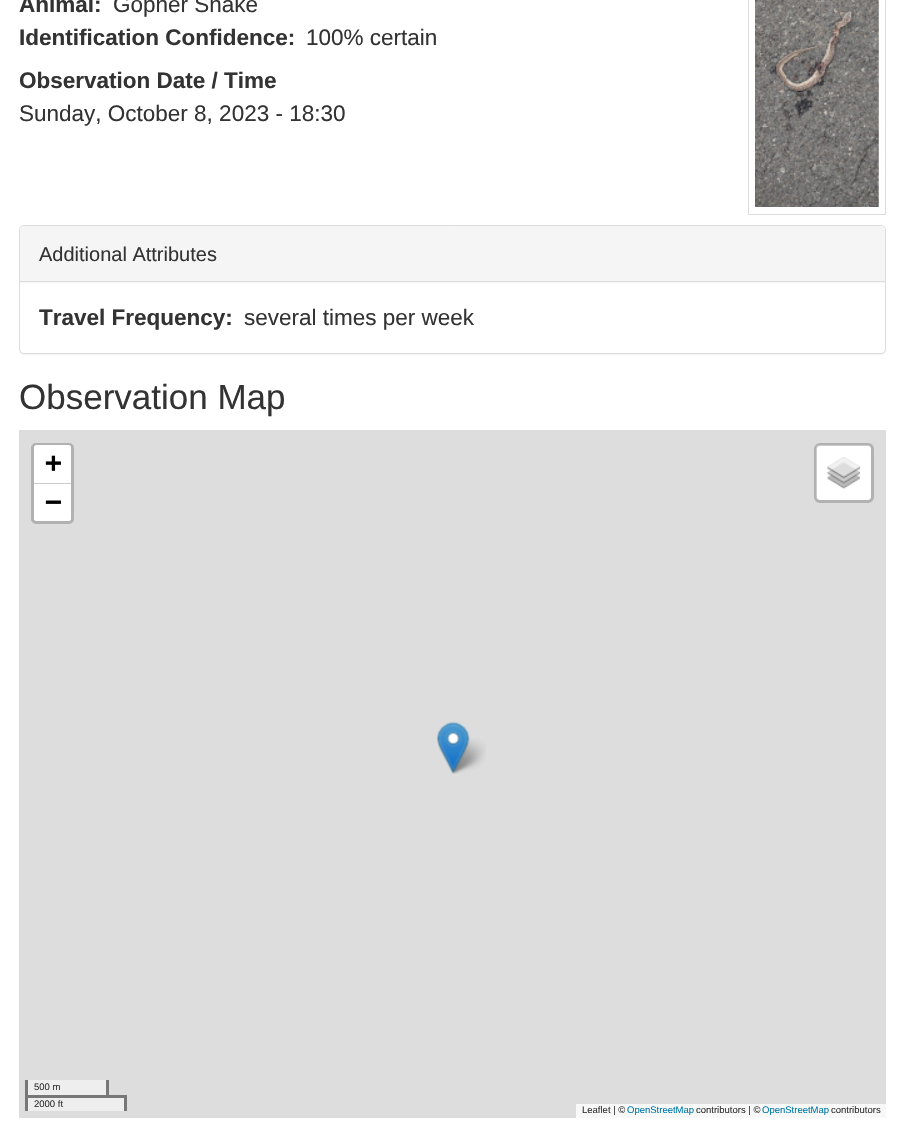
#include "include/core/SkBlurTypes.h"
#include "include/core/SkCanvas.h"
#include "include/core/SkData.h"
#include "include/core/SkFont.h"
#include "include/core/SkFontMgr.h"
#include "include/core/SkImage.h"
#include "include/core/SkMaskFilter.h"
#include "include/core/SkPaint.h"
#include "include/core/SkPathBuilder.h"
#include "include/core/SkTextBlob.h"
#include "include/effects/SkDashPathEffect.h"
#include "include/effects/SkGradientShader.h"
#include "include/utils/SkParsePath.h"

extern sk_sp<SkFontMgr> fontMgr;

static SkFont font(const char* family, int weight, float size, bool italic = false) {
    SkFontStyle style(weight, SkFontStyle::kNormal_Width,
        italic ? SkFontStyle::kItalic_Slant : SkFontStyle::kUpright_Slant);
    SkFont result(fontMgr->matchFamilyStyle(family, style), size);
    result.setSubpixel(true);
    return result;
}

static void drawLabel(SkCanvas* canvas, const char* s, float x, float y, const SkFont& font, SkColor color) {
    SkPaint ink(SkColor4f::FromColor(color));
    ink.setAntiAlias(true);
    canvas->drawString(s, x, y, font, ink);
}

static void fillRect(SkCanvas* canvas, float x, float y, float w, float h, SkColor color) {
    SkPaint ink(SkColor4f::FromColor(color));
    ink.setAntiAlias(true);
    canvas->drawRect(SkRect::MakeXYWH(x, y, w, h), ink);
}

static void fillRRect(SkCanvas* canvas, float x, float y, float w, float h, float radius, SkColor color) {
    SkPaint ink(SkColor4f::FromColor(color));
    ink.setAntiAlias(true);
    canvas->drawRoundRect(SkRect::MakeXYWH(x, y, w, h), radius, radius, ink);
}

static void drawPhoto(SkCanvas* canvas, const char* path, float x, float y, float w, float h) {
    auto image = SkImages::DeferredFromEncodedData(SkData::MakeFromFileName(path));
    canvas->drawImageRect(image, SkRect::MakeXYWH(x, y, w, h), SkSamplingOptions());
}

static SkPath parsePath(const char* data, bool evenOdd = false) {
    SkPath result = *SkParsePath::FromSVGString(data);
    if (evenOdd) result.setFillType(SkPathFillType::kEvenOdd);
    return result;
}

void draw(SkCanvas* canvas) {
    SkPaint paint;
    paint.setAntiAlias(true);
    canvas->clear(0xFFFFFFFF);
    SkFont font1 = font("Liberation Sans", 700, 22.5f);
    drawLabel(canvas, "Animal:", 19, 12, font1, 0xFF333333);
    SkFont font2 = font("Liberation Sans", 400, 22.5f);
    drawLabel(canvas, "Gopher Snake", 113, 12, font2, 0xFF333333);
    paint.setStroke(true);
    paint.setStrokeWidth(1);
    paint.setColor(0xFFDDDDDD);
    canvas->drawRect(SkRect::MakeXYWH(748.5f, -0.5f, 137, 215), paint);
    drawPhoto(canvas, "assets/img1.png", 755, 0, 124, 207);
    drawLabel(canvas, "Identification Confidence:", 19, 45, font1, 0xFF333333);
    drawLabel(canvas, "100% certain", 306, 45, font2, 0xFF333333);
    drawLabel(canvas, "Observation Date / Time", 19, 88, font1, 0xFF333333);
    drawLabel(canvas, "Sunday, October 8, 2023 - 18:30", 19, 121, font2, 0xFF333333);
    paint.setStroke(false);
    paint.setColor(0x0D000000);
    paint.setMaskFilter(SkMaskFilter::MakeBlur(kNormal_SkBlurStyle, 0.5f));
    canvas->drawRoundRect(SkRect::MakeXYWH(19, 226, 867, 129), 5, 5, paint);
    paint.setMaskFilter(nullptr);
    paint.setColor(0xFFFFFFFF);
    canvas->drawRoundRect(SkRect::MakeXYWH(19.5f, 225.5f, 866, 128), 4.5f, 4.5f, paint);
    paint.setStroke(true);
    paint.setColor(0xFFDDDDDD);
    canvas->drawRoundRect(SkRect::MakeXYWH(19.5f, 225.5f, 866, 128), 4.5f, 4.5f, paint);
    paint.setStroke(false);
    paint.setColor(0xFFF5F5F5);
    canvas->drawPath(parsePath("M24 226H881C883 226 885 228 885 230V283H20V230C20 228 22 226 24 226Z"), paint);
    fillRect(canvas, 20, 281, 865, 1, 0xFFDDDDDD);
    SkFont font3 = font("Liberation Sans", 400, 20);
    drawLabel(canvas, "Additional Attributes", 39, 261, font3, 0xFF333333);
    drawLabel(canvas, "Travel Frequency:", 39, 325, font1, 0xFF333333);
    drawLabel(canvas, "several times per week", 244, 325, font2, 0xFF333333);
    SkFont font4 = font("Liberation Sans", 400, 35);
    drawLabel(canvas, "Observation Map", 19, 409, font4, 0xFF333333);
    fillRect(canvas, 19, 430, 867, 688, 0xFFDDDDDD);
    fillRect(canvas, 28, 1098, 96, 13, 0xFFEEEEEE);
    paint.setStroke(true);
    paint.setStrokeWidth(3);
    paint.setColor(0xFFB1B1B1);
    canvas->drawRoundRect(SkRect::MakeXYWH(32.5f, 444.5f, 40, 78), 3.5f, 3.5f, paint);
    paint.setStroke(false);
    paint.setColor(0xFFFFFFFF);
    canvas->drawPath(parsePath("M36.5 445H68.5C70 445 71 446 71 447.5V484H34V447.5C34 446 35 445 36.5 445Z"), paint);
    fillRect(canvas, 34, 483, 37, 1, 0xFFCCCCCC);
    SkFont font5 = font("DejaVu Sans Mono", 700, 28);
    drawLabel(canvas, "+", 45, 472, font5, 0xFF000000);
    canvas->drawPath(parsePath("M34 484H71V518.5C71 520 70 521 68.5 521H36.5C35 521 34 520 34 518.5Z"), paint);
    drawLabel(canvas, "−", 45, 511, font5, 0xFF000000);
    fillRRect(canvas, 816, 445, 55, 55, 4, 0xFFFFFFFF);
    paint.setStroke(true);
    paint.setColor(0x33000000);
    canvas->drawRoundRect(SkRect::MakeXYWH(815.5f, 444.5f, 57, 57), 4.5f, 4.5f, paint);
    drawPhoto(canvas, "assets/img2.png", 827, 457, 33, 32);
    fillRect(canvas, 28, 1080, 78, 15, 0xFFEEEEEE);
    fillRect(canvas, 106, 1080, 3, 18, 0xFF777777);
    fillRect(canvas, 25, 1080, 3, 18, 0xFF777777);
    SkFont font6 = font("Liberation Sans", 400, 9.5f);
    drawLabel(canvas, "500 m", 34, 1090, font6, 0xFF333333);
    fillRect(canvas, 25, 1095, 101, 3, 0xFF777777);
    fillRect(canvas, 124, 1095, 3, 16, 0xFF777777);
    fillRect(canvas, 25, 1095, 3, 16, 0xFF777777);
    drawLabel(canvas, "2000 ft", 34, 1107, font6, 0xFF333333);
    fillRect(canvas, 576, 1104, 310, 14, 0xFFF8F8F8);
    drawLabel(canvas, "Leaflet | ©", 582, 1113, font6, 0xFF333333);
    drawLabel(canvas, "OpenStreetMap", 627, 1113, font6, 0xFF0078A8);
    drawLabel(canvas, "contributors | ©", 696, 1113, font6, 0xFF333333);
    drawLabel(canvas, "OpenStreetMap", 762, 1113, font6, 0xFF0078A8);
    drawLabel(canvas, "contributors", 831, 1113, font6, 0xFF333333);
    drawPhoto(canvas, "assets/img4.png", 448, 738, 38, 36);
    drawPhoto(canvas, "assets/img3.png", 437, 721, 33, 53);
}
